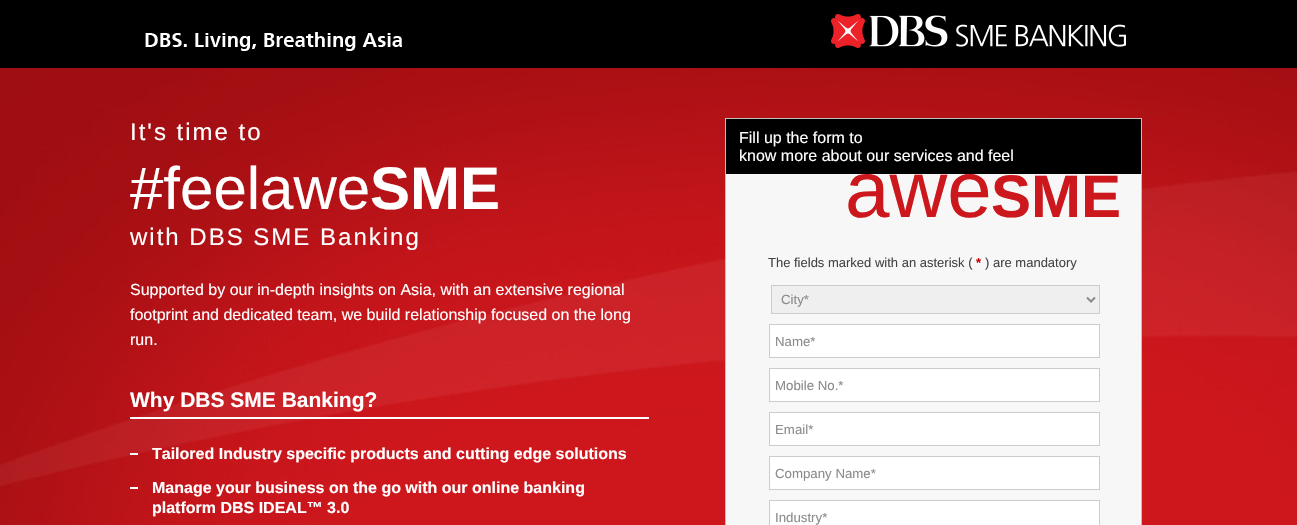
#include "include/core/SkBlurTypes.h"
#include "include/core/SkCanvas.h"
#include "include/core/SkData.h"
#include "include/core/SkFont.h"
#include "include/core/SkFontMgr.h"
#include "include/core/SkImage.h"
#include "include/core/SkMaskFilter.h"
#include "include/core/SkPaint.h"
#include "include/core/SkPathBuilder.h"
#include "include/core/SkTextBlob.h"
#include "include/effects/SkDashPathEffect.h"
#include "include/effects/SkGradientShader.h"
#include "include/utils/SkParsePath.h"

extern sk_sp<SkFontMgr> fontMgr;

static SkFont font(const char* family, int weight, float size, bool italic = false) {
    SkFontStyle style(weight, SkFontStyle::kNormal_Width,
        italic ? SkFontStyle::kItalic_Slant : SkFontStyle::kUpright_Slant);
    SkFont result(fontMgr->matchFamilyStyle(family, style), size);
    result.setSubpixel(true);
    return result;
}

static void drawLabel(SkCanvas* canvas, const char* s, float x, float y, const SkFont& font, SkColor color) {
    SkPaint ink(SkColor4f::FromColor(color));
    ink.setAntiAlias(true);
    canvas->drawString(s, x, y, font, ink);
}

static void drawTracked(SkCanvas* canvas, const char* s, float x, float y, const SkFont& font, const SkPaint& ink, float letter, float word) {
    std::vector<SkGlyphID> glyphs(font.countText(s, strlen(s), SkTextEncoding::kUTF8));
    std::vector<float> xs(glyphs.size());
    font.textToGlyphs(s, strlen(s), SkTextEncoding::kUTF8, glyphs);
    font.getXPos(glyphs, xs, x);
    float extra = 0;
    for (size_t i = 0; i < glyphs.size(); i++) {
        xs[i] += extra;
        extra += letter + word * (glyphs[i] == font.unicharToGlyph(' '));
    }
    canvas->drawTextBlob(SkTextBlob::MakeFromPosHGlyphs(glyphs, xs, y, font), 0, 0, ink);
}

static void fillRect(SkCanvas* canvas, float x, float y, float w, float h, SkColor color) {
    SkPaint ink(SkColor4f::FromColor(color));
    ink.setAntiAlias(true);
    canvas->drawRect(SkRect::MakeXYWH(x, y, w, h), ink);
}

static void drawPhoto(SkCanvas* canvas, const char* path, float x, float y, float w, float h) {
    auto image = SkImages::DeferredFromEncodedData(SkData::MakeFromFileName(path));
    canvas->drawImageRect(image, SkRect::MakeXYWH(x, y, w, h), SkSamplingOptions());
}

static SkPath parsePath(const char* data, bool evenOdd = false) {
    SkPath result = *SkParsePath::FromSVGString(data);
    if (evenOdd) result.setFillType(SkPathFillType::kEvenOdd);
    return result;
}

void draw(SkCanvas* canvas) {
    SkPaint paint;
    paint.setAntiAlias(true);
    canvas->clear(0xFFFFFFFF);
    drawPhoto(canvas, "assets/img1.png", 0, 68, 1297, 457);
    fillRect(canvas, 0, 0, 1297, 68, 0xFF000000);
    drawPhoto(canvas, "assets/img2.png", 145, 32, 257, 19);
    drawPhoto(canvas, "assets/img3.png", 831, 14, 295, 34);
    SkFont font1 = font("Liberation Sans", 400, 24);
    paint.setColor(0xFFFFFFFF);
    drawTracked(canvas, "It's time to", 130, 140, font1, paint, 2, 0);
    SkFont font2 = font("Liberation Sans", 400, 60);
    drawLabel(canvas, "#feelawe", 130, 209, font2, 0xFFFFFFFF);
    SkFont font3 = font("Liberation Sans", 700, 60);
    drawLabel(canvas, "SME", 370, 209, font3, 0xFFFFFFFF);
    drawTracked(canvas, "with DBS SME Banking", 130, 245, font1, paint, 2, 0);
    SkFont font4 = font("Liberation Sans", 400, 16);
    drawLabel(canvas, "Supported by our in-depth insights on Asia, with an extensive regional", 130, 295, font4, 0xFFFFFFFF);
    drawLabel(canvas, "footprint and dedicated team, we build relationship focused on the long", 130, 320, font4, 0xFFFFFFFF);
    drawLabel(canvas, "run.", 130, 345, font4, 0xFFFFFFFF);
    SkFont font5 = font("Liberation Sans", 700, 21);
    drawLabel(canvas, "Why DBS SME Banking?", 130, 407, font5, 0xFFFFFFFF);
    fillRect(canvas, 130, 417, 519, 2, 0xFFFFFFFF);
    fillRect(canvas, 130, 453, 8, 2, 0xFFFFFFFF);
    SkFont font6 = font("Liberation Sans", 700, 16);
    drawLabel(canvas, "Tailored Industry specific products and cutting edge solutions", 152, 459, font6, 0xFFFFFFFF);
    fillRect(canvas, 130, 487, 8, 2, 0xFFFFFFFF);
    drawLabel(canvas, "Manage your business on the go with our online banking", 152, 493, font6, 0xFFFFFFFF);
    drawLabel(canvas, "platform DBS IDEAL™ 3.0", 152, 513, font6, 0xFFFFFFFF);
    paint.setStroke(true);
    paint.setStrokeWidth(1);
    paint.setColor(0xFFC2BFBF);
    canvas->drawRect(SkRect::MakeXYWH(725.5f, 118.5f, 416, 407), paint);
    fillRect(canvas, 726, 119, 415, 55, 0xFF000000);
    drawLabel(canvas, "Fill up the form to", 739, 143, font4, 0xFFFFFFFF);
    drawLabel(canvas, "know more about our services and feel", 739, 161, font4, 0xFFFFFFFF);
    fillRect(canvas, 726, 174, 415, 351, 0xFFF7F7F7);
    SkFont font7 = font("Liberation Sans", 400, 80);
    drawLabel(canvas, "awe", 845, 217, font7, 0xFFCC171C);
    drawLabel(canvas, "SME", 991, 217, font3, 0xFFCC171C);
    SkFont font8 = font("Liberation Sans", 400, 13);
    drawLabel(canvas, "The fields marked with an asterisk (", 768, 267, font8, 0xFF444444);
    SkFont font9 = font("Liberation Sans", 700, 13);
    drawLabel(canvas, "*", 976, 267, font9, 0xFFCE0000);
    drawLabel(canvas, ") are mandatory", 985, 267, font8, 0xFF444444);
    paint.setStroke(false);
    paint.setColor(0xFFEFEFEF);
    canvas->drawRect(SkRect::MakeXYWH(771.5f, 285.5f, 328, 28), paint);
    paint.setStroke(true);
    paint.setColor(0xFFCCCCCC);
    canvas->drawRect(SkRect::MakeXYWH(771.5f, 285.5f, 328, 28), paint);
    paint.setStrokeWidth(2);
    paint.setColor(0xFF8A8B8C);
    canvas->drawPath(parsePath("M1087 297.5L1091 301.5L1095 297.5"), paint);
    SkFont font10 = font("Liberation Sans", 400, 13.25f);
    drawLabel(canvas, "City*", 781, 304, font10, 0xFF8A8B8C);
    paint.setStroke(false);
    paint.setColor(0xFFFFFFFF);
    canvas->drawRect(SkRect::MakeXYWH(769.5f, 324.5f, 330, 33), paint);
    paint.setStroke(true);
    paint.setStrokeWidth(1);
    paint.setColor(0xFFCCCCCC);
    canvas->drawRect(SkRect::MakeXYWH(769.5f, 324.5f, 330, 33), paint);
    drawLabel(canvas, "Name*", 775, 346, font10, 0xFF8A8B8C);
    paint.setStroke(false);
    paint.setColor(0xFFFFFFFF);
    canvas->drawRect(SkRect::MakeXYWH(769.5f, 368.5f, 330, 33), paint);
    paint.setStroke(true);
    paint.setColor(0xFFCCCCCC);
    canvas->drawRect(SkRect::MakeXYWH(769.5f, 368.5f, 330, 33), paint);
    drawLabel(canvas, "Mobile No.*", 775, 390, font10, 0xFF8A8B8C);
    paint.setStroke(false);
    paint.setColor(0xFFFFFFFF);
    canvas->drawRect(SkRect::MakeXYWH(769.5f, 412.5f, 330, 33), paint);
    paint.setStroke(true);
    paint.setColor(0xFFCCCCCC);
    canvas->drawRect(SkRect::MakeXYWH(769.5f, 412.5f, 330, 33), paint);
    drawLabel(canvas, "Email*", 775, 434, font10, 0xFF8A8B8C);
    paint.setStroke(false);
    paint.setColor(0xFFFFFFFF);
    canvas->drawRect(SkRect::MakeXYWH(769.5f, 456.5f, 330, 33), paint);
    paint.setStroke(true);
    paint.setColor(0xFFCCCCCC);
    canvas->drawRect(SkRect::MakeXYWH(769.5f, 456.5f, 330, 33), paint);
    drawLabel(canvas, "Company Name*", 775, 478, font10, 0xFF8A8B8C);
    paint.setStroke(false);
    paint.setColor(0xFFFFFFFF);
    canvas->drawRect(SkRect::MakeXYWH(769.5f, 500.5f, 330, 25), paint);
    paint.setStroke(true);
    paint.setColor(0xFFCCCCCC);
    canvas->drawRect(SkRect::MakeXYWH(769.5f, 500.5f, 330, 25), paint);
    drawLabel(canvas, "Industry*", 775, 522, font10, 0xFF8A8B8C);
}
